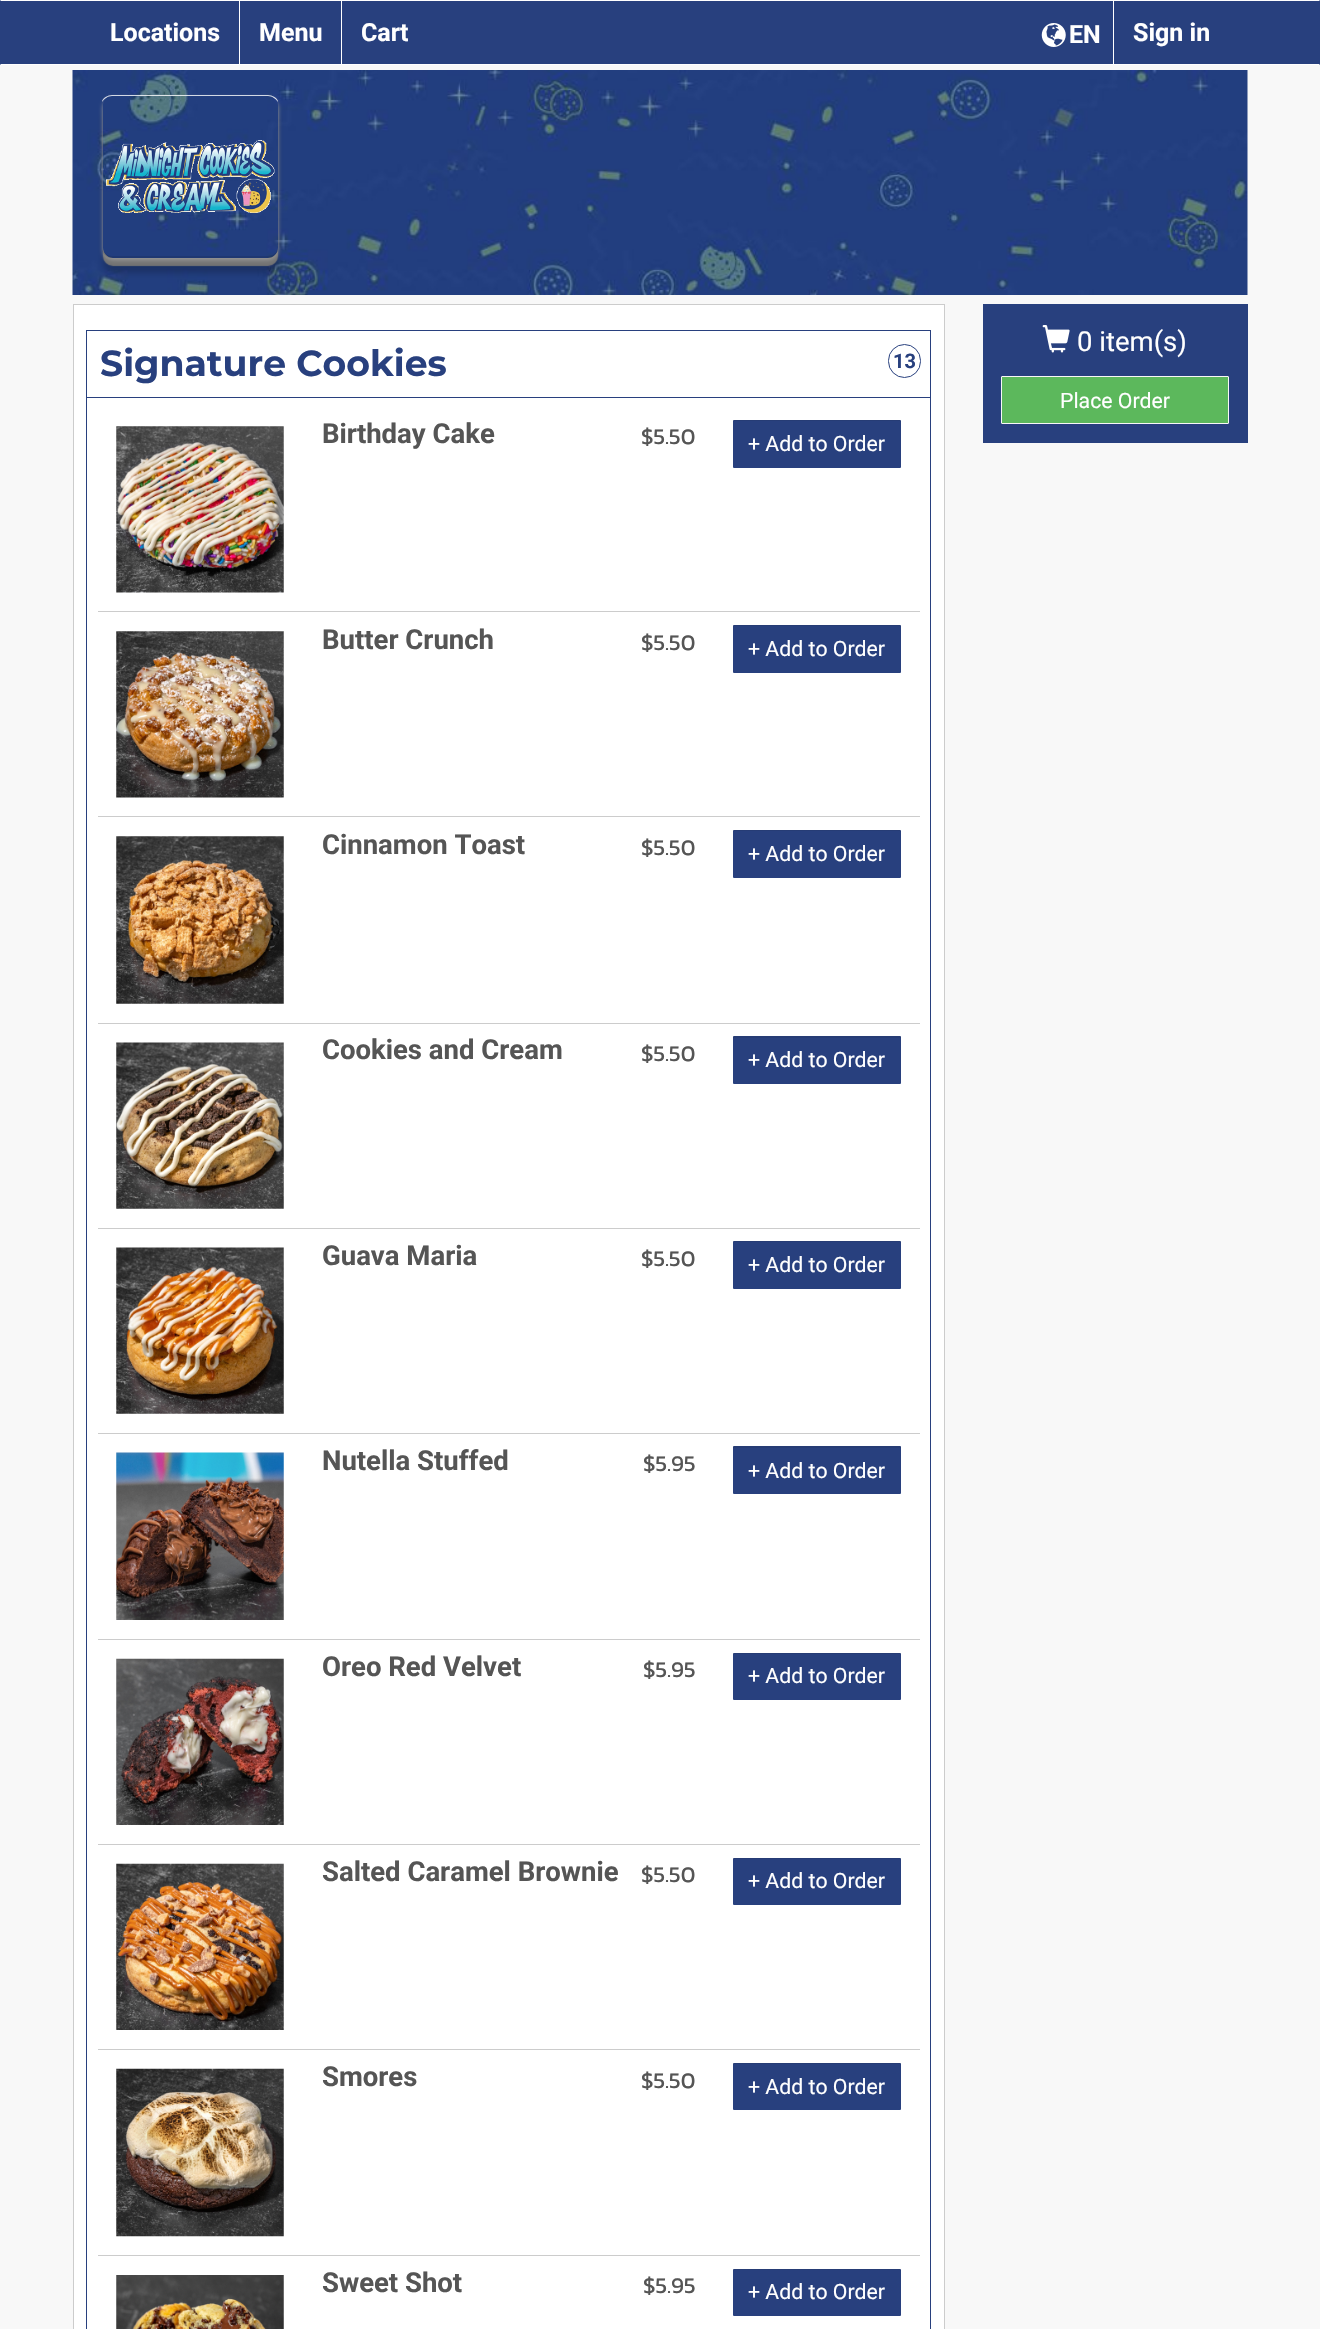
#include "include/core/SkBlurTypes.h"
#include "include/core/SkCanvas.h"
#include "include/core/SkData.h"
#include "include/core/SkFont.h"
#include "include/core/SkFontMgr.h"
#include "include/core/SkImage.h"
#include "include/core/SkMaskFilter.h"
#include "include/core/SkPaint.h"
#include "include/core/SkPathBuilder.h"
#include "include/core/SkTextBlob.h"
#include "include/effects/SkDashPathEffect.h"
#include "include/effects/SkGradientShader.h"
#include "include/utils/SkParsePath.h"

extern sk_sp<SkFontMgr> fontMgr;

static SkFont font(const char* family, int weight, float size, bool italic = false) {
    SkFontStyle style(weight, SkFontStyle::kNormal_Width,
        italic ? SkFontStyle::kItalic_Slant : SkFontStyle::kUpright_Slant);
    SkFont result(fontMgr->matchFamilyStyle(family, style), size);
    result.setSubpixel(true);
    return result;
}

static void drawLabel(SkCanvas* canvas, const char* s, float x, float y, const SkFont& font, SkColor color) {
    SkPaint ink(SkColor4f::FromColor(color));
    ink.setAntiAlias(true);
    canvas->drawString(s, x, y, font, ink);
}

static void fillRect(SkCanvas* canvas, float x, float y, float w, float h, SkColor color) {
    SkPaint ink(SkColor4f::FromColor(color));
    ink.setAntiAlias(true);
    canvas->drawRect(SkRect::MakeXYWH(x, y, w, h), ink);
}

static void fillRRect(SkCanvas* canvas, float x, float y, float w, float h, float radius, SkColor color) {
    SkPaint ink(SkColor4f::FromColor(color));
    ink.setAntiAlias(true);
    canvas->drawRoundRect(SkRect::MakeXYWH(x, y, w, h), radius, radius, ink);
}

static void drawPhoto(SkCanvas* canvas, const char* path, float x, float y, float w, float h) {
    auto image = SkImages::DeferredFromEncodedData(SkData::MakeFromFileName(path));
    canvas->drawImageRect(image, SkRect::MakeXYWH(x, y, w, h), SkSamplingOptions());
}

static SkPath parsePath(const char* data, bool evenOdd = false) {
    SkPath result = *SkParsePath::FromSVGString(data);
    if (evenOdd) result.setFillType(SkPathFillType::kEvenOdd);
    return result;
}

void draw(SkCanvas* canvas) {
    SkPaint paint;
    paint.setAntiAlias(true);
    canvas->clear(0xFFF8F8F8);
    fillRect(canvas, 0, 0, 1320, 65, 0xFF28407E);
    paint.setColor(0xFFFFFFFF);
    canvas->drawPath(parsePath("M0 0H1320L1319 1H1Z"), paint);
    canvas->drawPath(parsePath("M1320 65H0L1 64H1319Z"), paint);
    fillRect(canvas, 239, 1, 1, 63, 0xFFFFFFFF);
    SkFont font1 = font("Roboto", 700, 25);
    drawLabel(canvas, "Locations", 110, 41, font1, 0xFFFFFFFF);
    fillRect(canvas, 341, 1, 1, 63, 0xFFFFFFFF);
    drawLabel(canvas, "Menu", 259, 41, font1, 0xFFFFFFFF);
    drawLabel(canvas, "Cart", 361, 41, font1, 0xFFFFFFFF);
    drawPhoto(canvas, "assets/img1.png", 1041, 23, 25, 24);
    drawLabel(canvas, "EN", 1069, 43, font1, 0xFFFFFFFF);
    fillRect(canvas, 1113, 1, 1, 63, 0xFFFFFFFF);
    drawLabel(canvas, "Sign in", 1133, 41, font1, 0xFFFFFFFF);
    drawPhoto(canvas, "assets/img2.png", 72, 70, 1176, 225);
    canvas->save();
    canvas->clipPath(parsePath("M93 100H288V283H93ZM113 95H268C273.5 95 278 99.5 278 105V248C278 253.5 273.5 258 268 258H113C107.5 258 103 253.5 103 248V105C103 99.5 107.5 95 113 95Z", true), true);
    paint.setColor(0x33000000);
    paint.setMaskFilter(SkMaskFilter::MakeBlur(kNormal_SkBlurStyle, 3));
    canvas->drawRoundRect(SkRect::MakeXYWH(103, 110, 175, 163), 10, 10, paint);
    paint.setMaskFilter(nullptr);
    canvas->restore();
    canvas->save();
    canvas->clipPath(parsePath("M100 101H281V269H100ZM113 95H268C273.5 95 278 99.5 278 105V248C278 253.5 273.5 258 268 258H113C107.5 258 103 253.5 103 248V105C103 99.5 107.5 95 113 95Z", true), true);
    paint.setColor(0xFF737373);
    paint.setMaskFilter(SkMaskFilter::MakeBlur(kNormal_SkBlurStyle, 0.5f));
    canvas->drawRoundRect(SkRect::MakeXYWH(103, 104, 175, 162), 10, 10, paint);
    paint.setMaskFilter(nullptr);
    canvas->restore();
    canvas->save();
    canvas->clipPath(parsePath("M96 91H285V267H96ZM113 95H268C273.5 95 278 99.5 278 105V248C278 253.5 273.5 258 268 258H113C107.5 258 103 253.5 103 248V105C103 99.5 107.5 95 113 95Z", true), true);
    paint.setColor(0xFF999999);
    paint.setMaskFilter(SkMaskFilter::MakeBlur(kNormal_SkBlurStyle, 2));
    canvas->drawRoundRect(SkRect::MakeXYWH(103, 98, 175, 162), 10, 10, paint);
    paint.setMaskFilter(nullptr);
    canvas->restore();
    drawPhoto(canvas, "assets/img3.png", 106, 140, 169, 73);
    paint.setColor(0xCCFFFFFF);
    canvas->drawPath(parsePath("M112 95C108 95 102 98 102 102C104 99 108 96 112 96H268C272 96 276 99 278 102C278 98 272 95 268 95Z"), paint);
    paint.setColor(0x1A000000);
    canvas->drawPath(parsePath("M109 258C106 257 102 253 102 250C104 253 108 256 112 256H268C272 256 276 253 278 250V251C276 254 274 256 271 258Z"), paint);
    paint.setColor(0xFFFFFFFF);
    canvas->drawRect(SkRect::MakeXYWH(73.5f, 304.5f, 871, 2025), paint);
    paint.setStroke(true);
    paint.setStrokeWidth(1);
    paint.setColor(0xFFCCCCCC);
    canvas->drawRect(SkRect::MakeXYWH(73.5f, 304.5f, 871, 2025), paint);
    paint.setColor(0xFF28407E);
    canvas->drawRect(SkRect::MakeXYWH(86.5f, 396.5f, 844, 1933), paint);
    fillRect(canvas, 87, 396, 843, 1, 0xFFFFFFFF);
    canvas->drawRect(SkRect::MakeXYWH(86.5f, 330.5f, 844, 67), paint);
    SkFont font2 = font("Montserrat", 700, 36.25f);
    drawLabel(canvas, "Signature Cookies", 100, 376, font2, 0xFF28407E);
    canvas->drawRoundRect(SkRect::MakeXYWH(888.5f, 344.5f, 32, 33), 16, 16, paint);
    SkFont font3 = font("Roboto", 700, 20);
    drawLabel(canvas, "13", 893, 368, font3, 0xFF28407E);
    fillRect(canvas, 98, 611, 822, 1, 0xFFCCCCCC);
    drawPhoto(canvas, "assets/img4.png", 116, 426, 168, 167);
    SkFont font4 = font("Roboto", 700, 27.5f);
    drawLabel(canvas, "Birthday Cake", 322, 443, font4, 0xFF555555);
    SkFont font5 = font("Kanit", 400, 22.5f);
    drawLabel(canvas, "$5.50", 641, 444, font5, 0xFF555555);
    fillRRect(canvas, 733, 420, 168, 48, 1, 0xFF28407E);
    paint.setStroke(false);
    paint.setColor(0x12000000);
    canvas->drawPath(parsePath("M734 421H900L901 422C901 421 901 420 900 420H734C733 420 733 421 733 421Z"), paint);
    SkFont font6 = font("Roboto", 400, 21.25f);
    drawLabel(canvas, "+ Add to Order", 748, 451, font6, 0xFFFFFFFF);
    fillRect(canvas, 98, 816, 822, 1, 0xFFCCCCCC);
    drawPhoto(canvas, "assets/img5.png", 116, 631, 168, 167);
    drawLabel(canvas, "Butter Crunch", 322, 649, font4, 0xFF555555);
    drawLabel(canvas, "$5.50", 641, 650, font5, 0xFF555555);
    fillRRect(canvas, 733, 625, 168, 48, 1, 0xFF28407E);
    canvas->drawPath(parsePath("M734 626H900C901 626 901 627 901 628V626C901 625 901 625 900 625H734C733 625 733 625 733 626Z"), paint);
    drawLabel(canvas, "+ Add to Order", 748, 656, font6, 0xFFFFFFFF);
    fillRect(canvas, 98, 1023, 822, 1, 0xFFCCCCCC);
    drawPhoto(canvas, "assets/img6.png", 116, 836, 168, 168);
    drawLabel(canvas, "Cinnamon Toast", 322, 854, font4, 0xFF555555);
    drawLabel(canvas, "$5.50", 641, 855, font5, 0xFF555555);
    fillRRect(canvas, 733, 830, 168, 48, 1, 0xFF28407E);
    canvas->drawPath(parsePath("M734 831H900L901 832C901 831 901 830 900 830H734C733 830 733 831 733 831Z"), paint);
    drawLabel(canvas, "+ Add to Order", 748, 861, font6, 0xFFFFFFFF);
    fillRect(canvas, 98, 1228, 822, 1, 0xFFCCCCCC);
    drawPhoto(canvas, "assets/img7.png", 116, 1042, 168, 167);
    drawLabel(canvas, "Cookies and Cream", 322, 1059, font4, 0xFF555555);
    drawLabel(canvas, "$5.50", 641, 1061, font5, 0xFF555555);
    fillRRect(canvas, 733, 1036, 168, 48, 1, 0xFF28407E);
    canvas->drawPath(parsePath("M734 1038H900C901 1038 901 1038 901 1039V1037C901 1036 901 1036 900 1036H734C733 1036 733 1036 733 1037V1038Z"), paint);
    drawLabel(canvas, "+ Add to Order", 748, 1067, font6, 0xFFFFFFFF);
    fillRect(canvas, 98, 1433, 822, 1, 0xFFCCCCCC);
    drawPhoto(canvas, "assets/img8.png", 116, 1247, 168, 167);
    drawLabel(canvas, "Guava Maria", 322, 1265, font4, 0xFF555555);
    drawLabel(canvas, "$5.50", 641, 1266, font5, 0xFF555555);
    fillRRect(canvas, 733, 1241, 168, 48, 1, 0xFF28407E);
    canvas->drawPath(parsePath("M734 1242H900C901 1242 901 1243 901 1244V1242C901 1241 901 1241 900 1241H734C733 1241 733 1241 733 1242Z"), paint);
    drawLabel(canvas, "+ Add to Order", 748, 1272, font6, 0xFFFFFFFF);
    fillRect(canvas, 98, 1639, 822, 1, 0xFFCCCCCC);
    drawPhoto(canvas, "assets/img9.png", 116, 1452, 168, 168);
    drawLabel(canvas, "Nutella Stuffed", 322, 1470, font4, 0xFF555555);
    drawLabel(canvas, "$5.95", 643, 1471, font5, 0xFF555555);
    fillRRect(canvas, 733, 1446, 168, 48, 1, 0xFF28407E);
    canvas->drawPath(parsePath("M734 1448H900C901 1448 901 1448 901 1449V1447C901 1446 901 1446 900 1446H734C733 1446 733 1446 733 1447V1448Z"), paint);
    drawLabel(canvas, "+ Add to Order", 748, 1478, font6, 0xFFFFFFFF);
    fillRect(canvas, 98, 1844, 822, 1, 0xFFCCCCCC);
    drawPhoto(canvas, "assets/img10.png", 116, 1658, 168, 167);
    drawLabel(canvas, "Oreo Red Velvet", 322, 1676, font4, 0xFF555555);
    drawLabel(canvas, "$5.95", 643, 1677, font5, 0xFF555555);
    fillRRect(canvas, 733, 1653, 168, 47, 1, 0xFF28407E);
    canvas->drawPath(parsePath("M734 1654H900C901 1654 901 1654 901 1655V1654C901 1653 901 1653 900 1653H734C733 1653 733 1653 733 1654Z"), paint);
    drawLabel(canvas, "+ Add to Order", 748, 1683, font6, 0xFFFFFFFF);
    fillRect(canvas, 98, 2049, 822, 1, 0xFFCCCCCC);
    drawPhoto(canvas, "assets/img11.png", 116, 1863, 168, 167);
    drawLabel(canvas, "Salted Caramel Brownie", 322, 1881, font4, 0xFF555555);
    drawLabel(canvas, "$5.50", 641, 1882, font5, 0xFF555555);
    fillRRect(canvas, 733, 1858, 168, 47, 1, 0xFF28407E);
    canvas->drawPath(parsePath("M734 1859H900C901 1859 901 1859 901 1860V1859C901 1858 901 1858 900 1858H734C733 1858 733 1858 733 1859Z"), paint);
    drawLabel(canvas, "+ Add to Order", 748, 1888, font6, 0xFFFFFFFF);
    fillRect(canvas, 98, 2255, 822, 1, 0xFFCCCCCC);
    drawPhoto(canvas, "assets/img12.png", 116, 2068, 168, 169);
    drawLabel(canvas, "Smores", 322, 2086, font4, 0xFF555555);
    drawLabel(canvas, "$5.50", 641, 2088, font5, 0xFF555555);
    fillRRect(canvas, 733, 2063, 168, 47, 1, 0xFF28407E);
    canvas->drawPath(parsePath("M734 2064H900C901 2064 901 2064 901 2065V2064C901 2063 901 2063 900 2063H734C733 2063 733 2063 733 2064Z"), paint);
    drawLabel(canvas, "+ Add to Order", 748, 2094, font6, 0xFFFFFFFF);
    drawPhoto(canvas, "assets/img13.png", 116, 2275, 168, 54);
    drawLabel(canvas, "Sweet Shot", 322, 2292, font4, 0xFF555555);
    drawLabel(canvas, "$5.95", 643, 2293, font5, 0xFF555555);
    fillRRect(canvas, 733, 2269, 168, 47, 1, 0xFF28407E);
    canvas->drawPath(parsePath("M734 2270H900L901 2271C901 2270 901 2269 900 2269H734C733 2269 733 2270 733 2270Z"), paint);
    drawLabel(canvas, "+ Add to Order", 748, 2299, font6, 0xFFFFFFFF);
    fillRect(canvas, 983, 304, 265, 139, 0xFF28407E);
    drawPhoto(canvas, "assets/img14.png", 1042, 325, 28, 28);
    SkFont font7 = font("Roboto", 400, 27.5f);
    drawLabel(canvas, "0 item(s)", 1077, 351, font7, 0xFFFFFFFF);
    paint.setColor(0xFF5CB85C);
    canvas->drawRoundRect(SkRect::MakeXYWH(1001.5f, 376.5f, 227, 47), 0.5f, 0.5f, paint);
    paint.setStroke(true);
    paint.setColor(0xFFF8F8F8);
    canvas->drawRoundRect(SkRect::MakeXYWH(1001.5f, 376.5f, 227, 47), 0.5f, 0.5f, paint);
    drawLabel(canvas, "Place Order", 1060, 408, font6, 0xFFFFFFFF);
}
